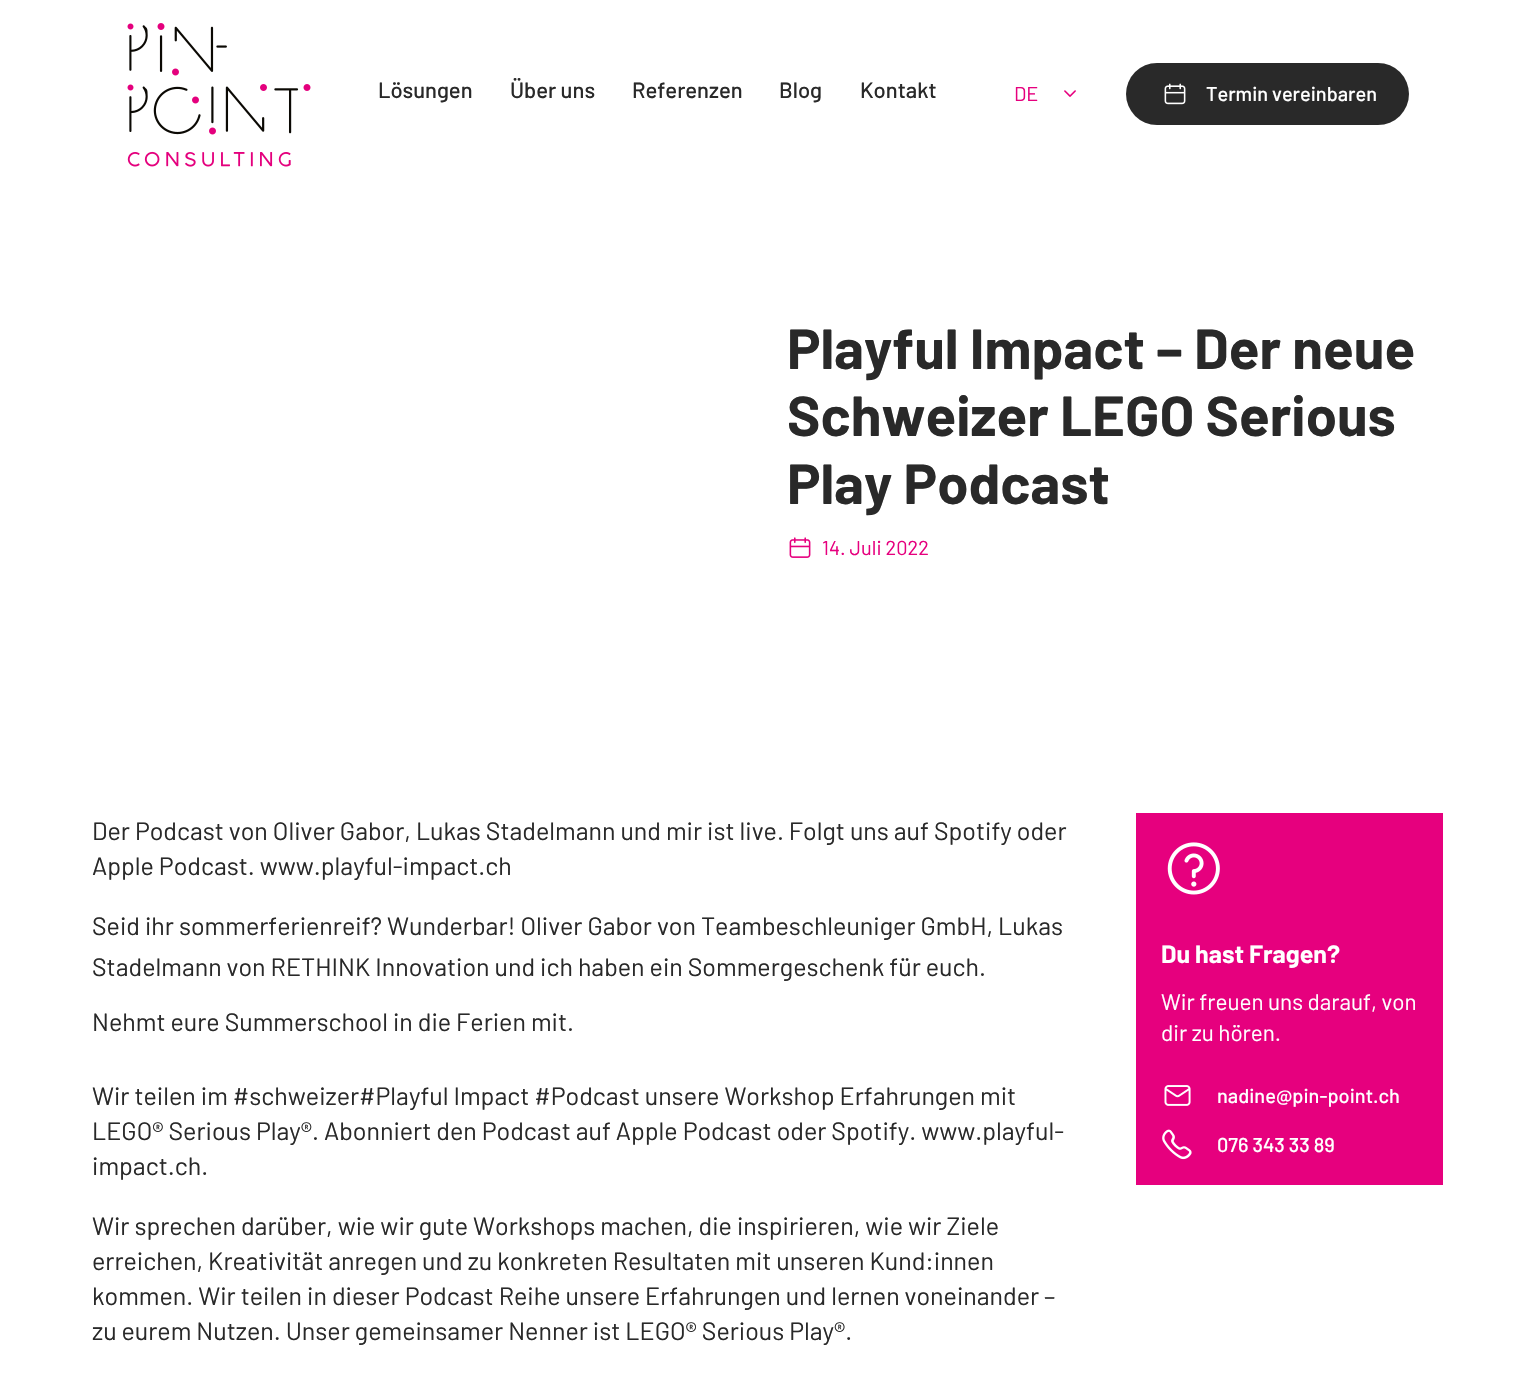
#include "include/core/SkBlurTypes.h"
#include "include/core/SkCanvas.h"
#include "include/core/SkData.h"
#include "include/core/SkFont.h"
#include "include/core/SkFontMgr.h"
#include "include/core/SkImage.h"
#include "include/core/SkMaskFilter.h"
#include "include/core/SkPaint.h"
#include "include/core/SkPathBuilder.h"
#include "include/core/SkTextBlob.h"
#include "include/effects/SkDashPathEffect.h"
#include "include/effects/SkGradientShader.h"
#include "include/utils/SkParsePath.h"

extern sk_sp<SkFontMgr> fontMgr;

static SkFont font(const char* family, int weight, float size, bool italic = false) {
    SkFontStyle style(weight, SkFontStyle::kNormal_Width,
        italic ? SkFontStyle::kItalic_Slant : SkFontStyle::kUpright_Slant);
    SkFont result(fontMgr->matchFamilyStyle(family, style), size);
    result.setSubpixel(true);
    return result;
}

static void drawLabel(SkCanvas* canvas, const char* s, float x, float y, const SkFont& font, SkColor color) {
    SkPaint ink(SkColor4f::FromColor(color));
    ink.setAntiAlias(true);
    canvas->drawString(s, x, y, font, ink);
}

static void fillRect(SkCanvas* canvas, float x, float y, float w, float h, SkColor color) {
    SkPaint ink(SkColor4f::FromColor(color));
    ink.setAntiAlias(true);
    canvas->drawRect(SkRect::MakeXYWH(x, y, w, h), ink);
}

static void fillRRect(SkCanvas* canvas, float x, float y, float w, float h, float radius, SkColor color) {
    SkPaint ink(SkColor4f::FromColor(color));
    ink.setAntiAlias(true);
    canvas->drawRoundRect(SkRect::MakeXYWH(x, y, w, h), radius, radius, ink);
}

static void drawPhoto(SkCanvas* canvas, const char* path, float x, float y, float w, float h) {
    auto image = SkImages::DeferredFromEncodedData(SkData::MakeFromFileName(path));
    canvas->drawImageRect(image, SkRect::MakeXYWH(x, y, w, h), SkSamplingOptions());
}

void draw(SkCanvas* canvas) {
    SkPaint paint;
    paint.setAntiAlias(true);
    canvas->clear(0xFFFFFFFF);
    drawPhoto(canvas, "assets/img1.png", 127, 23, 184, 144);
    SkFont font1 = font("Barlow", 500, 22);
    drawLabel(canvas, "Lösungen", 378, 98, font1, 0xFF292929);
    drawLabel(canvas, "Über uns", 510, 98, font1, 0xFF292929);
    drawLabel(canvas, "Referenzen", 632, 98, font1, 0xFF292929);
    drawLabel(canvas, "Blog", 779, 98, font1, 0xFF292929);
    drawLabel(canvas, "Kontakt", 860, 98, font1, 0xFF292929);
    SkFont font2 = font("Barlow", 400, 20);
    drawLabel(canvas, "DE", 1014, 101, font2, 0xFFE6007E);
    drawPhoto(canvas, "assets/img2.png", 1064, 90, 12, 7);
    fillRRect(canvas, 1126, 63, 283, 62, 31, 0xFF292929);
    drawPhoto(canvas, "assets/img3.png", 1164, 83, 22, 22);
    SkFont font3 = font("Barlow", 500, 20);
    drawLabel(canvas, "Termin vereinbaren", 1206, 101, font3, 0xFFFFFFFF);
    SkFont font4 = font("Barlow", 700, 56.25f);
    drawLabel(canvas, "Playful Impact – Der neue", 787, 369, font4, 0xFF292929);
    drawLabel(canvas, "Schweizer LEGO Serious", 787, 436, font4, 0xFF292929);
    drawLabel(canvas, "Play Podcast", 787, 504, font4, 0xFF292929);
    drawPhoto(canvas, "assets/img4.png", 789, 537, 22, 21);
    drawLabel(canvas, "14. Juli 2022", 822, 555, font2, 0xFFE6007E);
    SkFont font5 = font("Barlow", 400, 25);
    drawLabel(canvas, "Der Podcast von Oliver Gabor, Lukas Stadelmann und mir ist live. Folgt uns auf Spotify oder", 92, 840, font5, 0xFF292929);
    drawLabel(canvas, "Apple Podcast. www.playful-impact.ch", 92, 875, font5, 0xFF292929);
    drawLabel(canvas, "Seid ihr sommerferienreif? Wunderbar! Oliver Gabor von Teambeschleuniger GmbH, Lukas", 92, 935, font5, 0xFF292929);
    drawLabel(canvas, "Stadelmann von RETHINK Innovation und ich haben ein Sommergeschenk für euch.", 92, 976, font5, 0xFF292929);
    drawLabel(canvas, "Nehmt eure Summerschool in die Ferien mit.", 92, 1031, font5, 0xFF292929);
    drawLabel(canvas, "Wir teilen im #schweizer#Playful Impact #Podcast unsere Workshop Erfahrungen mit", 92, 1105, font5, 0xFF292929);
    drawLabel(canvas, "LEGO® Serious Play®. Abonniert den Podcast auf Apple Podcast oder Spotify. www.playful-", 92, 1140, font5, 0xFF292929);
    drawLabel(canvas, "impact.ch.", 92, 1175, font5, 0xFF292929);
    drawLabel(canvas, "Wir sprechen darüber, wie wir gute Workshops machen, die inspirieren, wie wir Ziele", 92, 1235, font5, 0xFF292929);
    drawLabel(canvas, "erreichen, Kreativität anregen und zu konkreten Resultaten mit unseren Kund:innen", 92, 1270, font5, 0xFF292929);
    drawLabel(canvas, "kommen. Wir teilen in dieser Podcast Reihe unsere Erfahrungen und lernen voneinander –", 92, 1305, font5, 0xFF292929);
    drawLabel(canvas, "zu eurem Nutzen. Unser gemeinsamer Nenner ist LEGO® Serious Play®.", 92, 1340, font5, 0xFF292929);
    fillRect(canvas, 1136, 813, 307, 372, 0xFFE6007E);
    drawPhoto(canvas, "assets/img5.png", 1167, 842, 53, 53);
    SkFont font6 = font("Barlow", 700, 25);
    drawLabel(canvas, "Du hast Fragen?", 1161, 963, font6, 0xFFFFFFFF);
    SkFont font7 = font("Barlow", 400, 22.5f);
    drawLabel(canvas, "Wir freuen uns darauf, von", 1161, 1010, font7, 0xFFFFFFFF);
    drawLabel(canvas, "dir zu hören.", 1161, 1041, font7, 0xFFFFFFFF);
    drawPhoto(canvas, "assets/img6.png", 1164, 1085, 27, 21);
    drawLabel(canvas, "nadine@pin-point.ch", 1217, 1103, font3, 0xFFFFFFFF);
    drawPhoto(canvas, "assets/img7.png", 1162, 1129, 30, 31);
    drawLabel(canvas, "076 343 33 89", 1217, 1152, font3, 0xFFFFFFFF);
}
